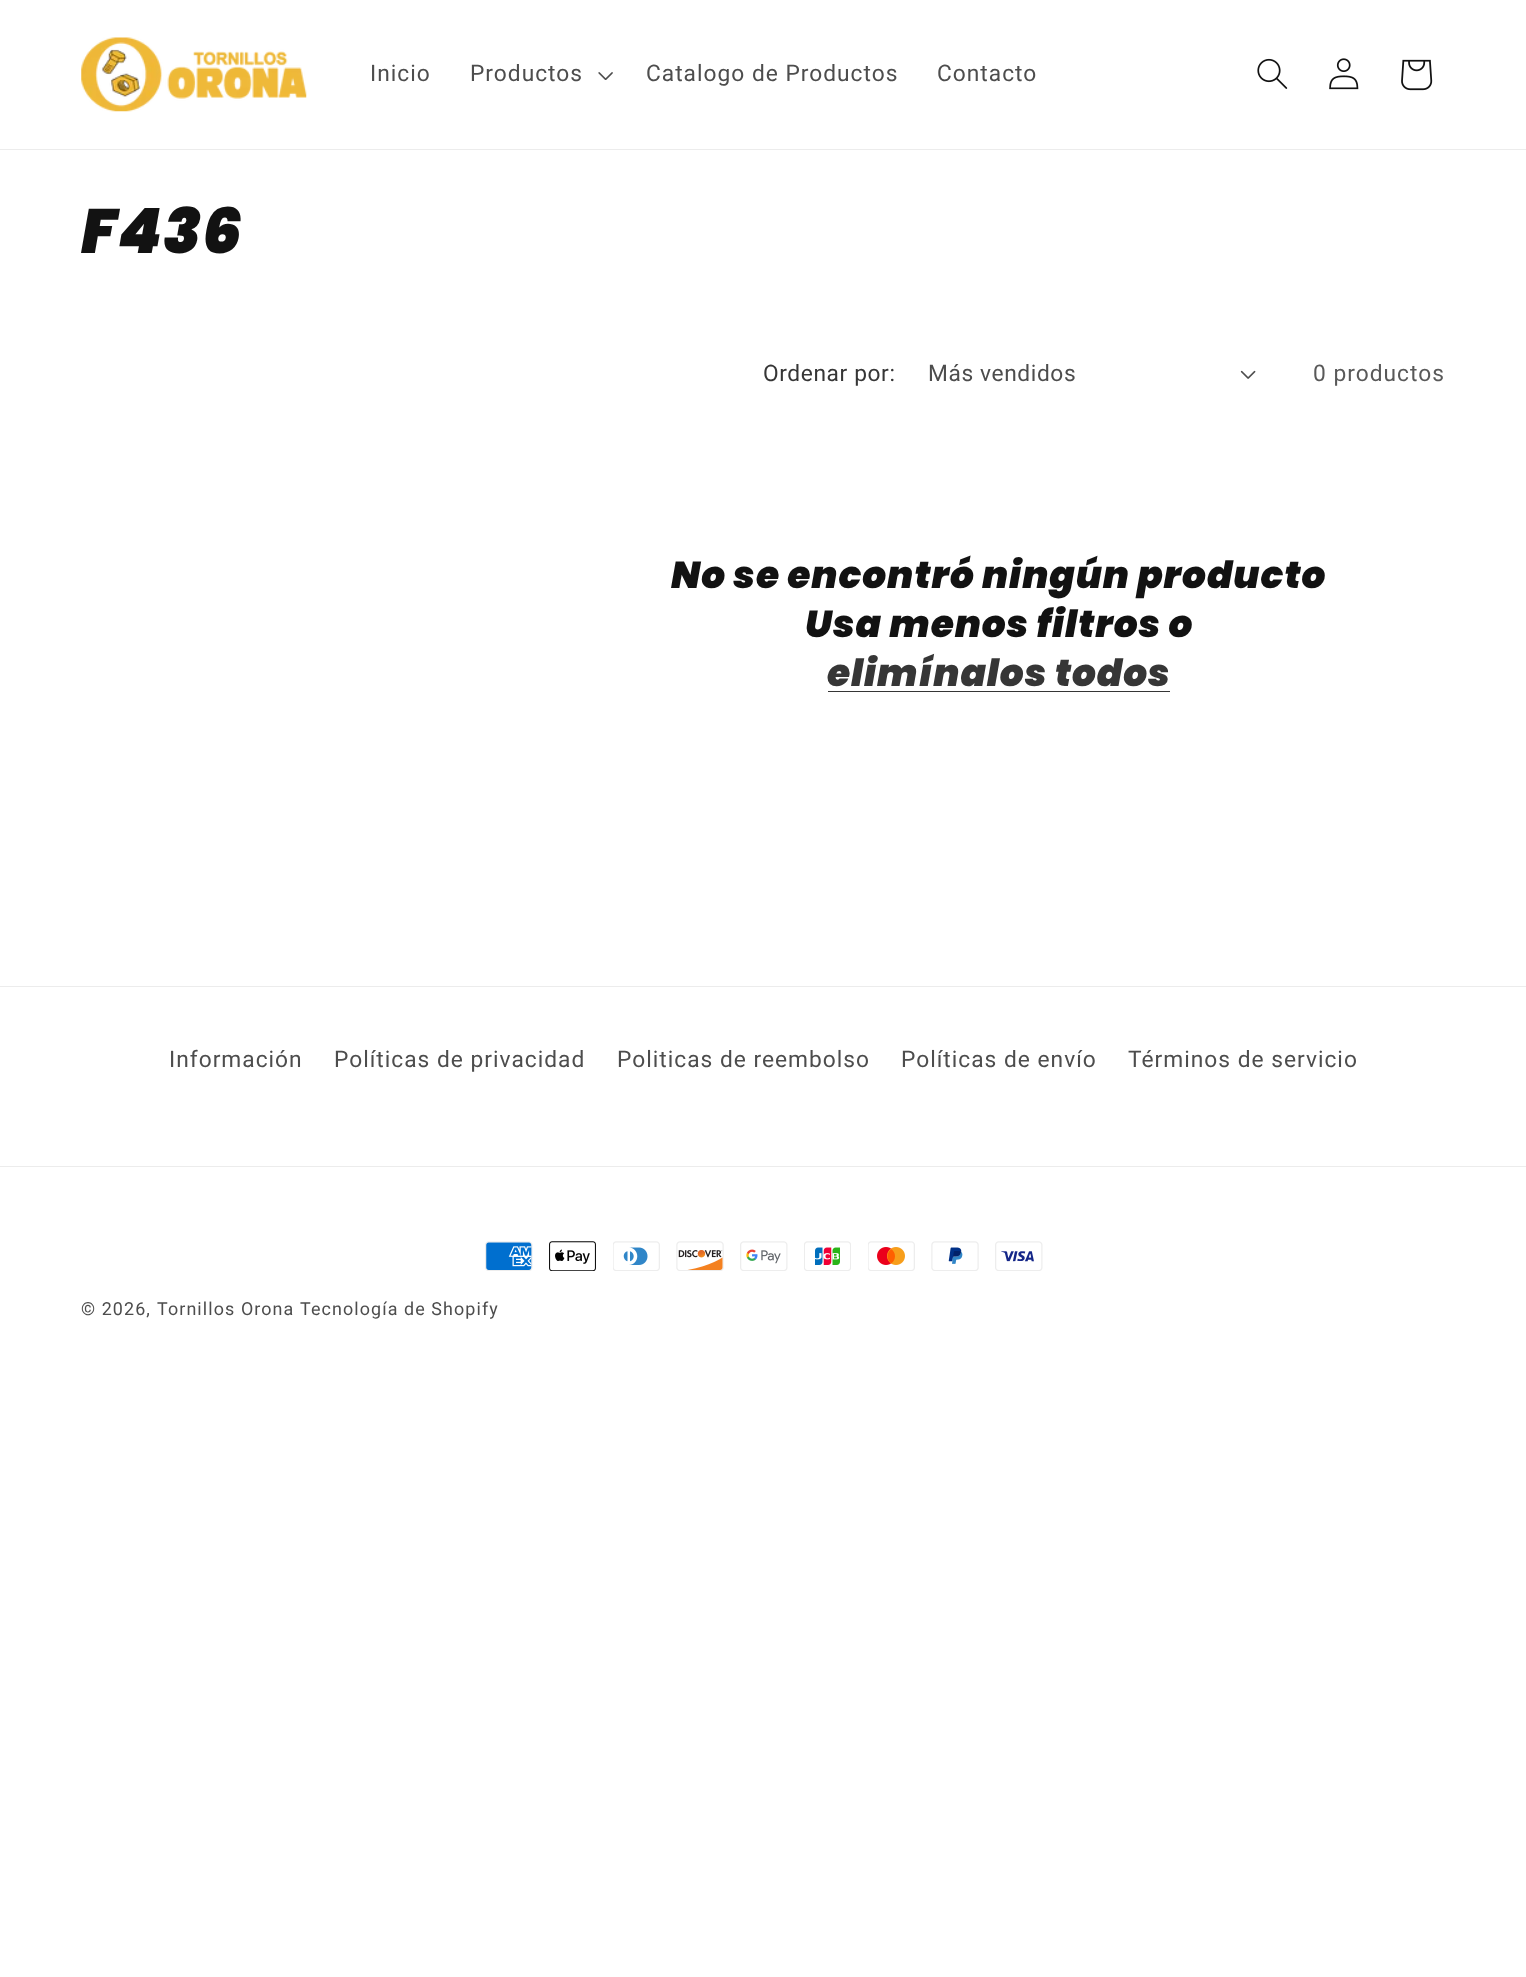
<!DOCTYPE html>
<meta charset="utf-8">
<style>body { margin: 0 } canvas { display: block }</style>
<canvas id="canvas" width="1526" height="1977"></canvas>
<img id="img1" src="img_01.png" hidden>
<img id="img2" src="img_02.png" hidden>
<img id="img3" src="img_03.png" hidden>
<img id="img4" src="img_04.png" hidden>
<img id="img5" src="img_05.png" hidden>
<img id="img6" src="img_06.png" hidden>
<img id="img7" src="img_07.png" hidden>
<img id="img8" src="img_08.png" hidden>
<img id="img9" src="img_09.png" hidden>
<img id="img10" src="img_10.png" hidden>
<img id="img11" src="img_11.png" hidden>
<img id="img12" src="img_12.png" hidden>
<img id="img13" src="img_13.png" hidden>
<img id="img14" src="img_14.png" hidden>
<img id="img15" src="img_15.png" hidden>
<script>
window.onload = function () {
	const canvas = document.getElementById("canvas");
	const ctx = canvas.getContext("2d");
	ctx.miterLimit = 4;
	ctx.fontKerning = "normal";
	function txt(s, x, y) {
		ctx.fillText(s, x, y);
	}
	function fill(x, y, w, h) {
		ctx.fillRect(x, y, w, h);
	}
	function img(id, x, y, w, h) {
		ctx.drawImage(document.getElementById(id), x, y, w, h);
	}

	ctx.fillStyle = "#FFFFFF";
	fill(0, 0, 1526, 1977);
	ctx.fillStyle = "#ECECEC";
	fill(0, 149, 1526, 1);
	img("img1", 81, 37, 226, 75);
	img("img2", 598, 72, 15, 8);
	img("img3", 1257, 58, 31, 31);
	img("img4", 1329, 58, 30, 32);
	img("img5", 1401, 59, 32, 32);
	img("img6", 1240, 370, 16, 9);
	ctx.fillStyle = "#363636";
	fill(828, 691, 342, 1);
	ctx.fillStyle = "#ECECEC";
	fill(0, 986, 1526, 1);
	fill(0, 1166, 1526, 1);
	img("img7", 485, 1241, 48, 30);
	img("img8", 549, 1241, 47, 30);
	img("img9", 613, 1241, 47, 30);
	img("img10", 676, 1241, 48, 30);
	img("img11", 740, 1241, 48, 30);
	img("img12", 804, 1241, 47, 30);
	img("img13", 868, 1241, 47, 30);
	img("img14", 931, 1241, 48, 30);
	img("img15", 995, 1241, 48, 30);
	ctx.letterSpacing = "1px";
	ctx.font = "22.75px Roboto";
	ctx.fillStyle = "#4D4D4D";
	txt("Inicio", 370, 81);
	txt("Productos", 470, 81);
	txt("Catalogo de Productos", 646, 81);
	txt("Contacto", 937, 81);
	ctx.letterSpacing = "0.95px";
	ctx.font = "italic 900 62.5px Poppins";
	ctx.fillStyle = "#121212";
	txt("F436", 81, 253);
	ctx.letterSpacing = "0.6px";
	ctx.font = "22.75px Roboto";
	ctx.fillStyle = "#363636";
	txt("Ordenar por:", 763, 381);
	ctx.fillStyle = "#4D4D4D";
	txt("Más vendidos", 928, 381);
	ctx.letterSpacing = "1px";
	ctx.fillStyle = "#595959";
	txt("0 productos", 1313, 381);
	ctx.letterSpacing = "0.95px";
	ctx.font = "italic 900 37.5px Poppins";
	ctx.fillStyle = "#121212";
	txt("No se encontró ningún producto", 671, 588);
	txt("Usa menos filtros o", 805, 637);
	ctx.fillStyle = "#363636";
	txt("elimínalos todos", 827, 686);
	ctx.letterSpacing = "1px";
	ctx.font = "22.75px Roboto";
	ctx.fillStyle = "#4D4D4D";
	txt("Información", 169, 1067);
	txt("Políticas de privacidad", 334, 1067);
	txt("Politicas de reembolso", 617, 1067);
	txt("Políticas de envío", 901, 1067);
	txt("Términos de servicio", 1128, 1067);
	ctx.letterSpacing = "1.1px";
	ctx.font = "17.9px Roboto";
	txt("© 2026,", 81, 1315);
	txt("Tornillos Orona", 157, 1315);
	txt("Tecnología de Shopify", 300, 1315);
};
</script>
